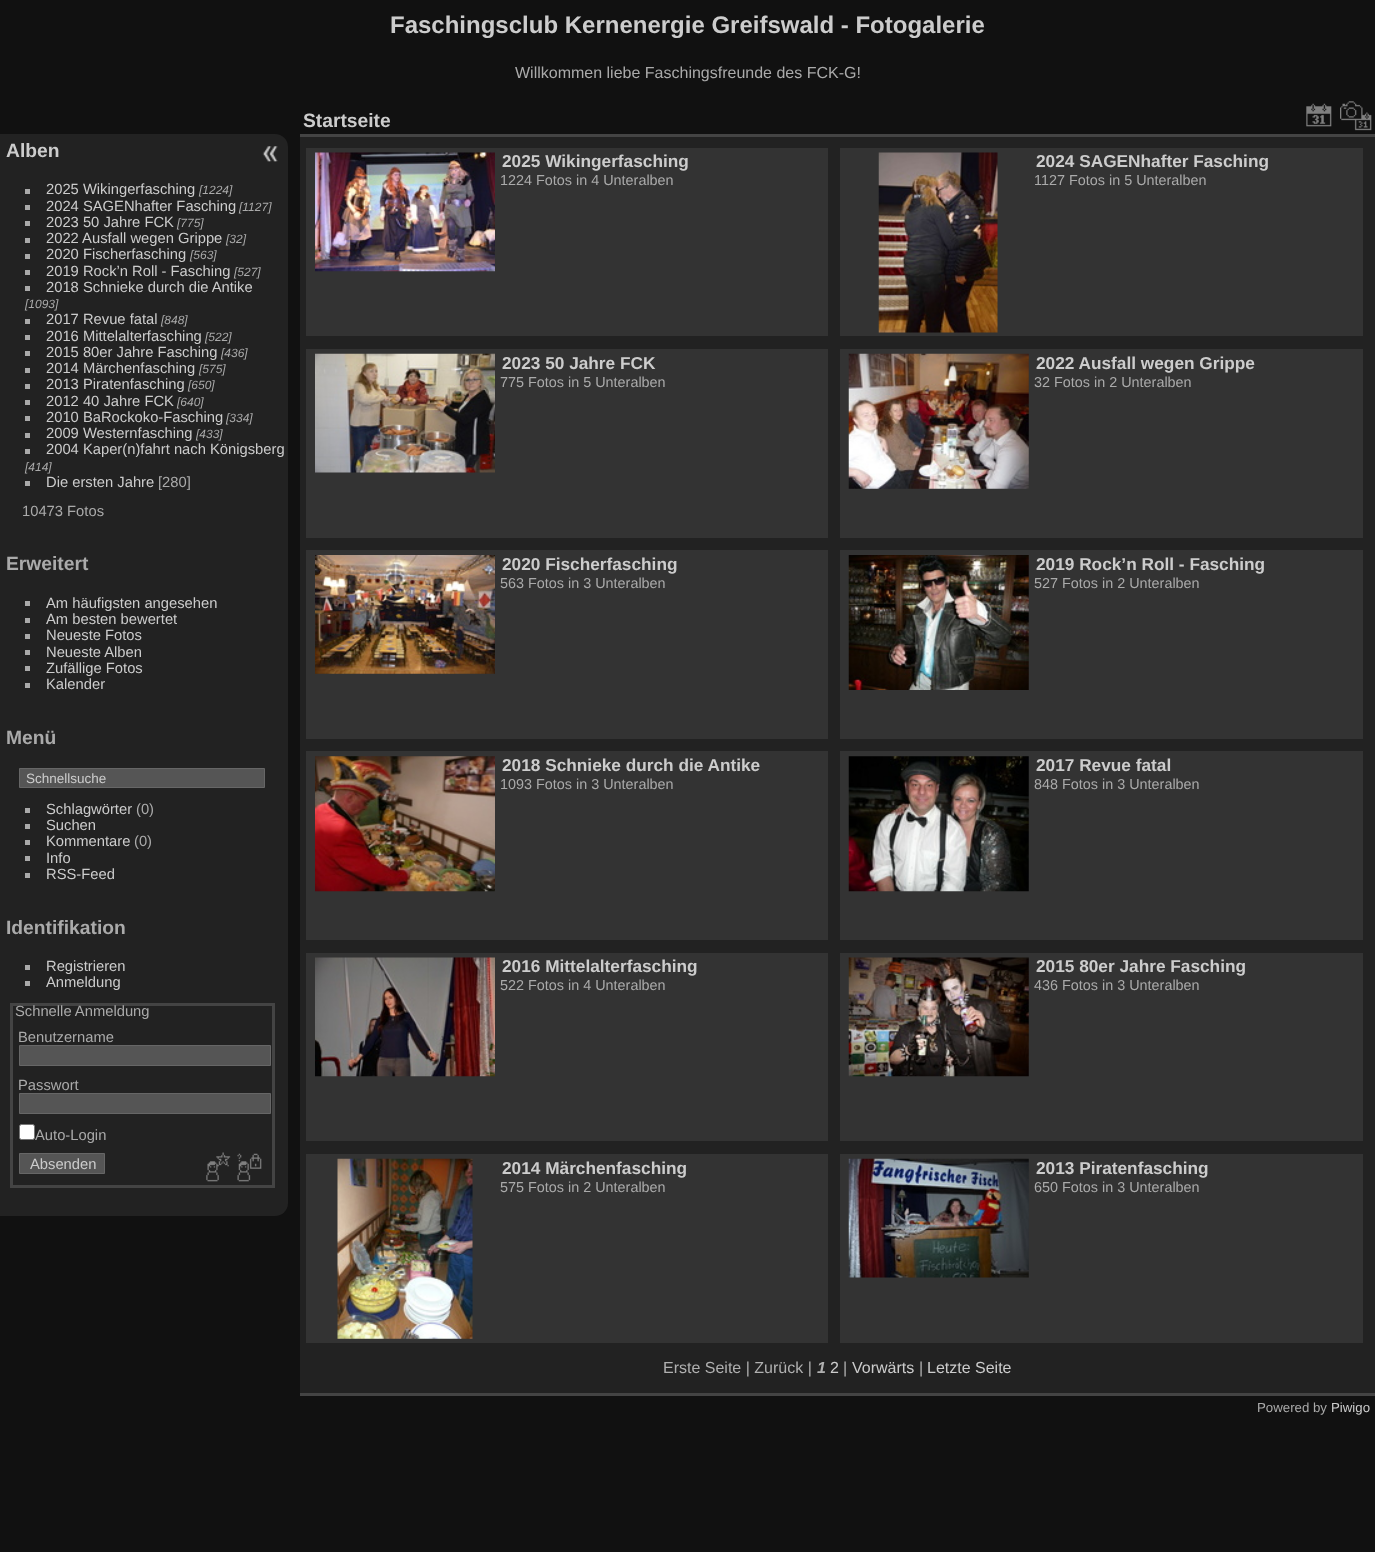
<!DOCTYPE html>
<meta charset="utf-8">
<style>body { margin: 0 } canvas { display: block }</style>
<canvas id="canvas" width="1375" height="1552"></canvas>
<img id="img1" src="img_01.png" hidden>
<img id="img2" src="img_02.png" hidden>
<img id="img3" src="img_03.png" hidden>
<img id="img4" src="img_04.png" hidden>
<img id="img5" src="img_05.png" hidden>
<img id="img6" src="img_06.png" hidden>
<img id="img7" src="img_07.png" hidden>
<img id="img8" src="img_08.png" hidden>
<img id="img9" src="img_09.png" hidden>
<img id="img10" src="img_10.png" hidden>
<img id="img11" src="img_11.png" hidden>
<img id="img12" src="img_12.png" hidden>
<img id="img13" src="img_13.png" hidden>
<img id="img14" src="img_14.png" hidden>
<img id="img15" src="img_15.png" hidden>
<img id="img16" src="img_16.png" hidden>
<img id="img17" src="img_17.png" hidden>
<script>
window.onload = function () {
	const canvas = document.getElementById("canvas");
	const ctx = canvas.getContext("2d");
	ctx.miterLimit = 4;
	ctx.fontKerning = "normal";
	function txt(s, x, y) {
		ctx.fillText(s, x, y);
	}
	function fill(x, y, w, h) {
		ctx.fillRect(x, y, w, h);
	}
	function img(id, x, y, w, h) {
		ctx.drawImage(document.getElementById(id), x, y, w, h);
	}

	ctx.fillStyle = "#111111";
	fill(0, 0, 1375, 1552);
	ctx.fillStyle = "#222222";
	ctx.beginPath();
	ctx.roundRect(0, 134, 288, 1082, [0, 13, 13, 0]);
	ctx.fill();
	ctx.fillStyle = "#AAAAAA";
	fill(25, 189, 5, 5);
	fill(25, 205, 5, 5);
	fill(25, 221, 5, 5);
	fill(25, 238, 5, 5);
	fill(25, 254, 5, 5);
	fill(25, 270, 5, 5);
	fill(25, 286, 5, 5);
	fill(25, 319, 5, 5);
	fill(25, 335, 5, 5);
	fill(25, 351, 5, 5);
	fill(25, 368, 5, 5);
	fill(25, 384, 5, 5);
	fill(25, 400, 5, 5);
	fill(25, 416, 5, 5);
	fill(25, 433, 5, 5);
	fill(25, 449, 5, 5);
	fill(25, 481, 5, 5);
	fill(25, 601, 5, 5);
	fill(25, 618, 5, 5);
	fill(25, 634, 5, 5);
	fill(25, 650, 5, 5);
	fill(25, 666, 5, 5);
	fill(25, 683, 5, 5);
	ctx.fillStyle = "#555555";
	ctx.beginPath();
	ctx.rect(19.5, 768.5, 245, 19);
	ctx.fill();
	ctx.strokeStyle = "#666666";
	ctx.stroke();
	ctx.fillStyle = "#AAAAAA";
	fill(25, 808, 5, 5);
	fill(25, 824, 5, 5);
	fill(25, 840, 5, 5);
	fill(25, 856, 5, 5);
	fill(25, 873, 5, 5);
	fill(25, 965, 5, 5);
	fill(25, 981, 5, 5);
	ctx.strokeStyle = "#444444";
	ctx.lineWidth = 3;
	ctx.strokeRect(11.5, 1004.5, 262, 182);
	ctx.fillStyle = "#555555";
	ctx.beginPath();
	ctx.rect(19.5, 1045.5, 251, 20);
	ctx.fill();
	ctx.strokeStyle = "#666666";
	ctx.lineWidth = 1;
	ctx.stroke();
	ctx.beginPath();
	ctx.rect(19.5, 1093.5, 251, 20);
	ctx.fill();
	ctx.stroke();
	ctx.fillStyle = "#FFFFFF";
	ctx.beginPath();
	ctx.roundRect(19.5, 1124.5, 15, 15, 2);
	ctx.fill();
	ctx.strokeStyle = "#767676";
	ctx.stroke();
	ctx.fillStyle = "#555555";
	ctx.beginPath();
	ctx.rect(19.5, 1153.5, 85, 20);
	ctx.fill();
	ctx.strokeStyle = "#666666";
	ctx.stroke();
	img("img1", 206, 1152, 25, 30);
	img("img2", 237, 1153, 25, 29);
	ctx.fillStyle = "#222222";
	fill(300, 137, 1075, 1256);
	ctx.fillStyle = "#444444";
	fill(300, 1393, 1075, 3);
	fill(300, 134, 1075, 3);
	img("img3", 1306, 103, 26, 24);
	img("img4", 1340, 101, 32, 30);
	ctx.fillStyle = "#333333";
	fill(306, 148, 522, 188);
	img("img5", 315, 152, 180, 120);
	fill(840, 148, 523, 188);
	img("img6", 878, 152, 120, 181);
	fill(306, 349, 522, 189);
	img("img7", 315, 353, 180, 120);
	fill(840, 349, 523, 189);
	img("img8", 848, 353, 181, 136);
	fill(306, 550, 522, 189);
	img("img9", 315, 555, 180, 119);
	fill(840, 550, 523, 189);
	img("img10", 848, 555, 181, 135);
	fill(306, 751, 522, 189);
	img("img11", 315, 756, 180, 136);
	fill(840, 751, 523, 189);
	img("img12", 848, 756, 181, 136);
	fill(306, 953, 522, 188);
	img("img13", 315, 957, 180, 120);
	fill(840, 953, 523, 188);
	img("img14", 848, 957, 181, 120);
	fill(306, 1154, 522, 189);
	img("img15", 337, 1158, 136, 181);
	fill(840, 1154, 523, 189);
	img("img16", 848, 1158, 181, 120);
	img("img17", 262, 146, 16, 16);
	ctx.font = "bold 24px Liberation Sans";
	ctx.fillStyle = "#CCCCCC";
	txt("Faschingsclub Kernenergie Greifswald - Fotogalerie", 390, 33);
	ctx.font = "16px Liberation Sans";
	ctx.fillStyle = "#AAAAAA";
	txt("Willkommen liebe Faschingsfreunde des FCK-G!", 515, 78);
	ctx.font = "bold 19.25px Liberation Sans";
	ctx.fillStyle = "#CCCCCC";
	txt("Alben", 6, 157);
	ctx.font = "14.75px Liberation Sans";
	txt("2025 Wikingerfasching", 46, 194);
	ctx.font = "italic 12px Liberation Sans";
	ctx.fillStyle = "#AAAAAA";
	txt("[1224]", 199, 194);
	ctx.font = "14.75px Liberation Sans";
	ctx.fillStyle = "#CCCCCC";
	txt("2024 SAGENhafter Fasching", 46, 211);
	ctx.font = "italic 12px Liberation Sans";
	ctx.fillStyle = "#AAAAAA";
	txt("[1127]", 239, 211);
	ctx.font = "14.75px Liberation Sans";
	ctx.fillStyle = "#CCCCCC";
	txt("2023 50 Jahre FCK", 46, 227);
	ctx.font = "italic 12px Liberation Sans";
	ctx.fillStyle = "#AAAAAA";
	txt("[775]", 177, 227);
	ctx.font = "14.75px Liberation Sans";
	ctx.fillStyle = "#CCCCCC";
	txt("2022 Ausfall wegen Grippe", 46, 243);
	ctx.font = "italic 12px Liberation Sans";
	ctx.fillStyle = "#AAAAAA";
	txt("[32]", 226, 243);
	ctx.font = "14.75px Liberation Sans";
	ctx.fillStyle = "#CCCCCC";
	txt("2020 Fischerfasching", 46, 259);
	ctx.font = "italic 12px Liberation Sans";
	ctx.fillStyle = "#AAAAAA";
	txt("[563]", 190, 259);
	ctx.font = "14.75px Liberation Sans";
	ctx.fillStyle = "#CCCCCC";
	txt("2019 Rock’n Roll - Fasching", 46, 276);
	ctx.font = "italic 12px Liberation Sans";
	ctx.fillStyle = "#AAAAAA";
	txt("[527]", 234, 276);
	ctx.font = "14.75px Liberation Sans";
	ctx.fillStyle = "#CCCCCC";
	txt("2018 Schnieke durch die Antike", 46, 292);
	ctx.font = "italic 12px Liberation Sans";
	ctx.fillStyle = "#AAAAAA";
	txt("[1093]", 25, 308);
	ctx.font = "14.75px Liberation Sans";
	ctx.fillStyle = "#CCCCCC";
	txt("2017 Revue fatal", 46, 324);
	ctx.font = "italic 12px Liberation Sans";
	ctx.fillStyle = "#AAAAAA";
	txt("[848]", 161, 324);
	ctx.font = "14.75px Liberation Sans";
	ctx.fillStyle = "#CCCCCC";
	txt("2016 Mittelalterfasching", 46, 341);
	ctx.font = "italic 12px Liberation Sans";
	ctx.fillStyle = "#AAAAAA";
	txt("[522]", 205, 341);
	ctx.font = "14.75px Liberation Sans";
	ctx.fillStyle = "#CCCCCC";
	txt("2015 80er Jahre Fasching", 46, 357);
	ctx.font = "italic 12px Liberation Sans";
	ctx.fillStyle = "#AAAAAA";
	txt("[436]", 221, 357);
	ctx.font = "14.75px Liberation Sans";
	ctx.fillStyle = "#CCCCCC";
	txt("2014 Märchenfasching", 46, 373);
	ctx.font = "italic 12px Liberation Sans";
	ctx.fillStyle = "#AAAAAA";
	txt("[575]", 199, 373);
	ctx.font = "14.75px Liberation Sans";
	ctx.fillStyle = "#CCCCCC";
	txt("2013 Piratenfasching", 46, 389);
	ctx.font = "italic 12px Liberation Sans";
	ctx.fillStyle = "#AAAAAA";
	txt("[650]", 188, 389);
	ctx.font = "14.75px Liberation Sans";
	ctx.fillStyle = "#CCCCCC";
	txt("2012 40 Jahre FCK", 46, 406);
	ctx.font = "italic 12px Liberation Sans";
	ctx.fillStyle = "#AAAAAA";
	txt("[640]", 177, 406);
	ctx.font = "14.75px Liberation Sans";
	ctx.fillStyle = "#CCCCCC";
	txt("2010 BaRockoko-Fasching", 46, 422);
	ctx.font = "italic 12px Liberation Sans";
	ctx.fillStyle = "#AAAAAA";
	txt("[334]", 226, 422);
	ctx.font = "14.75px Liberation Sans";
	ctx.fillStyle = "#CCCCCC";
	txt("2009 Westernfasching", 46, 438);
	ctx.font = "italic 12px Liberation Sans";
	ctx.fillStyle = "#AAAAAA";
	txt("[433]", 196, 438);
	ctx.font = "14.75px Liberation Sans";
	ctx.fillStyle = "#CCCCCC";
	txt("2004 Kaper(n)fahrt nach Königsberg", 46, 454);
	ctx.font = "italic 12px Liberation Sans";
	ctx.fillStyle = "#AAAAAA";
	txt("[414]", 25, 471);
	ctx.font = "14.75px Liberation Sans";
	ctx.fillStyle = "#CCCCCC";
	txt("Die ersten Jahre", 46, 487);
	ctx.fillStyle = "#AAAAAA";
	txt("[280]", 158, 487);
	txt("10473 Fotos", 22, 516);
	ctx.font = "bold 19.25px Liberation Sans";
	txt("Erweitert", 6, 570);
	ctx.font = "14.75px Liberation Sans";
	ctx.fillStyle = "#CCCCCC";
	txt("Am häufigsten angesehen", 46, 608);
	txt("Am besten bewertet", 46, 624);
	txt("Neueste Fotos", 46, 640);
	txt("Neueste Alben", 46, 657);
	txt("Zufällige Fotos", 46, 673);
	txt("Kalender", 46, 689);
	ctx.font = "bold 19.25px Liberation Sans";
	ctx.fillStyle = "#AAAAAA";
	txt("Menü", 6, 744);
	ctx.font = "13.5px Liberation Sans";
	ctx.fillStyle = "#CCCCCC";
	txt("Schnellsuche", 26, 783);
	ctx.font = "14.75px Liberation Sans";
	txt("Schlagwörter", 46, 814);
	ctx.fillStyle = "#AAAAAA";
	txt("(0)", 136, 814);
	ctx.fillStyle = "#CCCCCC";
	txt("Suchen", 46, 830);
	txt("Kommentare", 46, 846);
	ctx.fillStyle = "#AAAAAA";
	txt("(0)", 134, 846);
	ctx.fillStyle = "#CCCCCC";
	txt("Info", 46, 863);
	txt("RSS-Feed", 46, 879);
	ctx.font = "bold 19.25px Liberation Sans";
	ctx.fillStyle = "#AAAAAA";
	txt("Identifikation", 6, 934);
	ctx.font = "14.75px Liberation Sans";
	ctx.fillStyle = "#CCCCCC";
	txt("Registrieren", 46, 971);
	txt("Anmeldung", 46, 987);
	ctx.fillStyle = "#AAAAAA";
	txt("Schnelle Anmeldung", 15, 1016);
	txt("Benutzername", 18, 1042);
	txt("Passwort", 18, 1090);
	txt("Auto-Login", 35, 1140);
	ctx.fillStyle = "#CCCCCC";
	txt("Absenden", 30, 1169);
	ctx.font = "bold 19.25px Liberation Sans";
	txt("Startseite", 303, 127);
	ctx.font = "bold 17.25px Liberation Sans";
	txt("2025 Wikingerfasching", 502, 167);
	ctx.font = "14.4px Liberation Sans";
	ctx.fillStyle = "#AAAAAA";
	txt("1224 Fotos in 4 Unteralben", 500, 185);
	ctx.font = "bold 17.25px Liberation Sans";
	ctx.fillStyle = "#CCCCCC";
	txt("2024 SAGENhafter Fasching", 1036, 167);
	ctx.font = "14.4px Liberation Sans";
	ctx.fillStyle = "#AAAAAA";
	txt("1127 Fotos in 5 Unteralben", 1034, 185);
	ctx.font = "bold 17.25px Liberation Sans";
	ctx.fillStyle = "#CCCCCC";
	txt("2023 50 Jahre FCK", 502, 369);
	ctx.font = "14.4px Liberation Sans";
	ctx.fillStyle = "#AAAAAA";
	txt("775 Fotos in 5 Unteralben", 500, 387);
	ctx.font = "bold 17.25px Liberation Sans";
	ctx.fillStyle = "#CCCCCC";
	txt("2022 Ausfall wegen Grippe", 1036, 369);
	ctx.font = "14.4px Liberation Sans";
	ctx.fillStyle = "#AAAAAA";
	txt("32 Fotos in 2 Unteralben", 1034, 387);
	ctx.font = "bold 17.25px Liberation Sans";
	ctx.fillStyle = "#CCCCCC";
	txt("2020 Fischerfasching", 502, 570);
	ctx.font = "14.4px Liberation Sans";
	ctx.fillStyle = "#AAAAAA";
	txt("563 Fotos in 3 Unteralben", 500, 588);
	ctx.font = "bold 17.25px Liberation Sans";
	ctx.fillStyle = "#CCCCCC";
	txt("2019 Rock’n Roll - Fasching", 1036, 570);
	ctx.font = "14.4px Liberation Sans";
	ctx.fillStyle = "#AAAAAA";
	txt("527 Fotos in 2 Unteralben", 1034, 588);
	ctx.font = "bold 17.25px Liberation Sans";
	ctx.fillStyle = "#CCCCCC";
	txt("2018 Schnieke durch die Antike", 502, 771);
	ctx.font = "14.4px Liberation Sans";
	ctx.fillStyle = "#AAAAAA";
	txt("1093 Fotos in 3 Unteralben", 500, 789);
	ctx.font = "bold 17.25px Liberation Sans";
	ctx.fillStyle = "#CCCCCC";
	txt("2017 Revue fatal", 1036, 771);
	ctx.font = "14.4px Liberation Sans";
	ctx.fillStyle = "#AAAAAA";
	txt("848 Fotos in 3 Unteralben", 1034, 789);
	ctx.font = "bold 17.25px Liberation Sans";
	ctx.fillStyle = "#CCCCCC";
	txt("2016 Mittelalterfasching", 502, 972);
	ctx.font = "14.4px Liberation Sans";
	ctx.fillStyle = "#AAAAAA";
	txt("522 Fotos in 4 Unteralben", 500, 990);
	ctx.font = "bold 17.25px Liberation Sans";
	ctx.fillStyle = "#CCCCCC";
	txt("2015 80er Jahre Fasching", 1036, 972);
	ctx.font = "14.4px Liberation Sans";
	ctx.fillStyle = "#AAAAAA";
	txt("436 Fotos in 3 Unteralben", 1034, 990);
	ctx.font = "bold 17.25px Liberation Sans";
	ctx.fillStyle = "#CCCCCC";
	txt("2014 Märchenfasching", 502, 1174);
	ctx.font = "14.4px Liberation Sans";
	ctx.fillStyle = "#AAAAAA";
	txt("575 Fotos in 2 Unteralben", 500, 1192);
	ctx.font = "bold 17.25px Liberation Sans";
	ctx.fillStyle = "#CCCCCC";
	txt("2013 Piratenfasching", 1036, 1174);
	ctx.font = "14.4px Liberation Sans";
	ctx.fillStyle = "#AAAAAA";
	txt("650 Fotos in 3 Unteralben", 1034, 1192);
	ctx.font = "16px Liberation Sans";
	ctx.fillStyle = "#B0B0B0";
	txt("Erste Seite | Zurück |", 663, 1373);
	ctx.font = "italic bold 16px Liberation Sans";
	txt("1", 817, 1373);
	ctx.font = "16px Liberation Sans";
	ctx.fillStyle = "#CCCCCC";
	txt("2", 830, 1373);
	ctx.fillStyle = "#B0B0B0";
	txt("|", 843, 1373);
	ctx.fillStyle = "#CCCCCC";
	txt("Vorwärts", 852, 1373);
	ctx.fillStyle = "#B0B0B0";
	txt("|", 919, 1373);
	ctx.fillStyle = "#CCCCCC";
	txt("Letzte Seite", 927, 1373);
	ctx.font = "13.25px Liberation Sans";
	ctx.fillStyle = "#AAAAAA";
	txt("Powered by", 1257, 1412);
	ctx.fillStyle = "#CCCCCC";
	txt("Piwigo", 1331, 1412);
};
</script>
